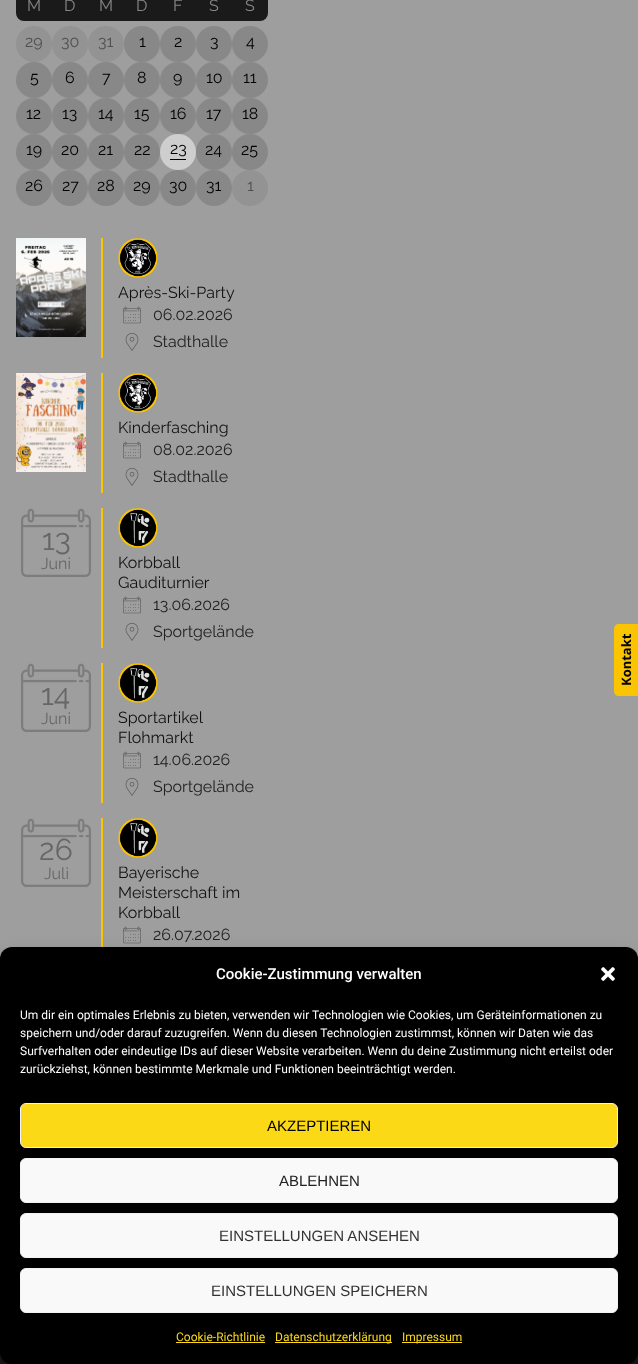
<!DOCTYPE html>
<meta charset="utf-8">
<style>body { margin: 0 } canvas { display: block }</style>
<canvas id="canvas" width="638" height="1364"></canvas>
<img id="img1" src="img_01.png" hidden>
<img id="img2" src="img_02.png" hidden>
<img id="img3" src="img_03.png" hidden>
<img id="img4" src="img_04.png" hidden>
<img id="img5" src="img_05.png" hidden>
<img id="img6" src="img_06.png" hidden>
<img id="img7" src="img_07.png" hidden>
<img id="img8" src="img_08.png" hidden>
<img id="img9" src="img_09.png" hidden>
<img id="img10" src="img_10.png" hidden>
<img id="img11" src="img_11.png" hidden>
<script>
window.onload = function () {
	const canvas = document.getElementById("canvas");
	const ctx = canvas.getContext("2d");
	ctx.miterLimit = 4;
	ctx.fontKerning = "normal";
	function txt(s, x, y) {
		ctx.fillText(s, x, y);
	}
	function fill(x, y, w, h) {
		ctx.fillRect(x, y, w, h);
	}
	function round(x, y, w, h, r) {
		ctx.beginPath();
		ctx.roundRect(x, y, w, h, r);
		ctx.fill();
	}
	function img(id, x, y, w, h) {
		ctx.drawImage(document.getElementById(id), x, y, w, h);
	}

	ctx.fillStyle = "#9E9E9E";
	fill(0, 0, 638, 1364);
	ctx.fillStyle = "#1A1A1A";
	round(16, -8, 252, 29, 8);
	ctx.fillStyle = "#939393";
	ctx.beginPath();
	ctx.arc(34, 44, 18, 0, Math.PI * 2);
	ctx.fill();
	ctx.beginPath();
	ctx.arc(70, 44, 18, 0, Math.PI * 2);
	ctx.fill();
	ctx.beginPath();
	ctx.arc(106, 44, 18, 0, Math.PI * 2);
	ctx.fill();
	ctx.fillStyle = "#888888";
	ctx.beginPath();
	ctx.arc(142, 44, 18, 0, Math.PI * 2);
	ctx.fill();
	ctx.beginPath();
	ctx.arc(178, 44, 18, 0, Math.PI * 2);
	ctx.fill();
	ctx.beginPath();
	ctx.arc(214, 44, 18, 0, Math.PI * 2);
	ctx.fill();
	ctx.beginPath();
	ctx.arc(250, 44, 18, 0, Math.PI * 2);
	ctx.fill();
	ctx.beginPath();
	ctx.arc(34, 80, 18, 0, Math.PI * 2);
	ctx.fill();
	ctx.beginPath();
	ctx.arc(70, 80, 18, 0, Math.PI * 2);
	ctx.fill();
	ctx.beginPath();
	ctx.arc(106, 80, 18, 0, Math.PI * 2);
	ctx.fill();
	ctx.beginPath();
	ctx.arc(142, 80, 18, 0, Math.PI * 2);
	ctx.fill();
	ctx.beginPath();
	ctx.arc(178, 80, 18, 0, Math.PI * 2);
	ctx.fill();
	ctx.beginPath();
	ctx.arc(214, 80, 18, 0, Math.PI * 2);
	ctx.fill();
	ctx.beginPath();
	ctx.arc(250, 80, 18, 0, Math.PI * 2);
	ctx.fill();
	ctx.beginPath();
	ctx.arc(34, 116, 18, 0, Math.PI * 2);
	ctx.fill();
	ctx.beginPath();
	ctx.arc(70, 116, 18, 0, Math.PI * 2);
	ctx.fill();
	ctx.beginPath();
	ctx.arc(106, 116, 18, 0, Math.PI * 2);
	ctx.fill();
	ctx.beginPath();
	ctx.arc(142, 116, 18, 0, Math.PI * 2);
	ctx.fill();
	ctx.beginPath();
	ctx.arc(178, 116, 18, 0, Math.PI * 2);
	ctx.fill();
	ctx.beginPath();
	ctx.arc(214, 116, 18, 0, Math.PI * 2);
	ctx.fill();
	ctx.beginPath();
	ctx.arc(250, 116, 18, 0, Math.PI * 2);
	ctx.fill();
	ctx.beginPath();
	ctx.arc(34, 152, 18, 0, Math.PI * 2);
	ctx.fill();
	ctx.beginPath();
	ctx.arc(70, 152, 18, 0, Math.PI * 2);
	ctx.fill();
	ctx.beginPath();
	ctx.arc(106, 152, 18, 0, Math.PI * 2);
	ctx.fill();
	ctx.beginPath();
	ctx.arc(142, 152, 18, 0, Math.PI * 2);
	ctx.fill();
	ctx.fillStyle = "#CECECE";
	ctx.beginPath();
	ctx.arc(178, 152, 18, 0, Math.PI * 2);
	ctx.fill();
	ctx.fillStyle = "#000000";
	fill(170, 159, 16, 1);
	ctx.fillStyle = "#888888";
	ctx.beginPath();
	ctx.arc(214, 152, 18, 0, Math.PI * 2);
	ctx.fill();
	ctx.beginPath();
	ctx.arc(250, 152, 18, 0, Math.PI * 2);
	ctx.fill();
	ctx.beginPath();
	ctx.arc(34, 188, 18, 0, Math.PI * 2);
	ctx.fill();
	ctx.beginPath();
	ctx.arc(70, 188, 18, 0, Math.PI * 2);
	ctx.fill();
	ctx.beginPath();
	ctx.arc(106, 188, 18, 0, Math.PI * 2);
	ctx.fill();
	ctx.beginPath();
	ctx.arc(142, 188, 18, 0, Math.PI * 2);
	ctx.fill();
	ctx.beginPath();
	ctx.arc(178, 188, 18, 0, Math.PI * 2);
	ctx.fill();
	ctx.beginPath();
	ctx.arc(214, 188, 18, 0, Math.PI * 2);
	ctx.fill();
	ctx.fillStyle = "#939393";
	ctx.beginPath();
	ctx.arc(250, 188, 18, 0, Math.PI * 2);
	ctx.fill();
	img("img1", 16, 238, 70, 99);
	ctx.fillStyle = "#FBC400";
	fill(101, 238, 2, 120);
	img("img2", 118, 238, 40, 40);
	img("img3", 123, 306, 18, 18);
	img("img4", 125, 333, 14, 18);
	img("img5", 16, 373, 70, 99);
	fill(101, 373, 2, 120);
	img("img6", 118, 373, 40, 40);
	img("img3", 123, 441, 18, 18);
	img("img4", 125, 468, 14, 18);
	img("img7", 21, 508, 70, 69);
	fill(101, 508, 2, 140);
	img("img8", 118, 508, 40, 40);
	img("img3", 123, 596, 18, 18);
	img("img4", 125, 623, 14, 18);
	img("img7", 21, 663, 70, 69);
	fill(101, 663, 2, 140);
	img("img9", 118, 663, 40, 40);
	img("img3", 123, 751, 18, 18);
	img("img4", 125, 778, 14, 18);
	img("img7", 21, 818, 70, 69);
	fill(101, 818, 2, 129);
	img("img10", 118, 818, 40, 40);
	img("img3", 123, 926, 18, 18);
	ctx.fillStyle = "#1A1A1A";
	fill(0, 1352, 638, 12);
	ctx.fillStyle = "#FBC400";
	ctx.beginPath();
	ctx.moveTo(614, 691);
	ctx.lineTo(614, 629);
	ctx.bezierCurveTo(614, 626, 616, 624, 619, 624);
	ctx.lineTo(638, 624);
	ctx.lineTo(638, 696);
	ctx.lineTo(619, 696);
	ctx.bezierCurveTo(616, 696, 614, 694, 614, 691);
	ctx.closePath();
	ctx.fill();
	ctx.fillStyle = "rgba(0, 0, 0, 0.23)";
	ctx.filter = "blur(3px)";
	ctx.beginPath();
	ctx.roundRect(0, 953, 638, 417, 12);
	ctx.fill();
	ctx.filter = "none";
	ctx.fillStyle = "rgba(0, 0, 0, 0.19)";
	ctx.filter = "blur(10px)";
	ctx.beginPath();
	ctx.roundRect(0, 957, 638, 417, 12);
	ctx.fill();
	ctx.filter = "none";
	ctx.fillStyle = "#000000";
	round(0, 947, 638, 417, 12);
	img("img11", 601, 967, 14, 14);
	ctx.fillStyle = "#FBD916";
	ctx.beginPath();
	ctx.roundRect(20.5, 1103.5, 597, 44, 5.5);
	ctx.fill();
	ctx.strokeStyle = "#F2F2F2";
	ctx.stroke();
	ctx.fillStyle = "#F9F9F9";
	ctx.beginPath();
	ctx.roundRect(20.5, 1158.5, 597, 44, 5.5);
	ctx.fill();
	ctx.stroke();
	ctx.beginPath();
	ctx.roundRect(20.5, 1213.5, 597, 44, 5.5);
	ctx.fill();
	ctx.stroke();
	ctx.beginPath();
	ctx.roundRect(20.5, 1268.5, 597, 44, 5.5);
	ctx.fill();
	ctx.stroke();
	ctx.fillStyle = "#FBD916";
	fill(176, 1342, 89, 1);
	fill(275, 1342, 117, 1);
	fill(402, 1342, 60, 1);
	ctx.font = "16px Raleway";
	ctx.fillStyle = "#888888";
	txt("M", 27, 11);
	txt("D", 64, 11);
	txt("M", 99, 11);
	txt("D", 136, 11);
	txt("F", 173, 11);
	txt("S", 209, 11);
	txt("S", 245, 11);
	ctx.fillStyle = "#4F4F4F";
	txt("29", 25, 47);
	txt("30", 61, 47);
	txt("31", 98, 47);
	ctx.fillStyle = "#000000";
	txt("1", 139, 47);
	txt("2", 174, 47);
	txt("3", 210, 47);
	txt("4", 246, 47);
	txt("5", 30, 83);
	txt("6", 65, 83);
	txt("7", 102, 83);
	txt("8", 137, 83);
	txt("9", 173, 83);
	txt("10", 206, 83);
	txt("11", 243, 83);
	txt("12", 26, 119);
	txt("13", 62, 119);
	txt("14", 98, 119);
	txt("15", 134, 119);
	txt("16", 170, 119);
	txt("17", 206, 119);
	txt("18", 242, 119);
	txt("19", 26, 155);
	txt("20", 61, 155);
	txt("21", 98, 155);
	txt("22", 134, 155);
	txt("23", 170, 154);
	txt("24", 205, 155);
	txt("25", 241, 155);
	txt("26", 25, 191);
	txt("27", 62, 191);
	txt("28", 97, 191);
	txt("29", 133, 191);
	txt("30", 169, 191);
	txt("31", 206, 191);
	ctx.fillStyle = "#4F4F4F";
	txt("1", 247, 191);
	ctx.fillStyle = "#111111";
	txt("Après-Ski-Party", 118, 298);
	ctx.fillStyle = "#212121";
	txt("06.02.2026", 153, 320);
	txt("Stadthalle", 153, 347);
	ctx.fillStyle = "#111111";
	txt("Kinderfasching", 118, 433);
	ctx.fillStyle = "#212121";
	txt("08.02.2026", 153, 455);
	txt("Stadthalle", 153, 482);
	ctx.font = "30px Raleway";
	ctx.fillStyle = "#666666";
	txt("13", 42, 550);
	ctx.font = "16px Raleway";
	txt("Juni", 41, 569);
	ctx.fillStyle = "#111111";
	txt("Korbball", 118, 568);
	txt("Gauditurnier", 118, 588);
	ctx.fillStyle = "#212121";
	txt("13.06.2026", 153, 610);
	txt("Sportgelände", 153, 637);
	ctx.font = "30px Raleway";
	ctx.fillStyle = "#666666";
	txt("14", 41, 705);
	ctx.font = "16px Raleway";
	txt("Juni", 41, 724);
	ctx.fillStyle = "#111111";
	txt("Sportartikel", 118, 723);
	txt("Flohmarkt", 118, 743);
	ctx.fillStyle = "#212121";
	txt("14.06.2026", 153, 765);
	txt("Sportgelände", 153, 792);
	ctx.font = "30px Raleway";
	ctx.fillStyle = "#666666";
	txt("26", 39, 860);
	ctx.font = "16px Raleway";
	txt("Juli", 44, 879);
	ctx.fillStyle = "#111111";
	txt("Bayerische", 118, 878);
	txt("Meisterschaft im", 118, 898);
	txt("Korbball", 118, 918);
	ctx.fillStyle = "#212121";
	txt("26.07.2026", 153, 940);
	ctx.font = "bold 13px Open Sans";
	ctx.fillStyle = "#000000";
	ctx.save();
	ctx.translate(631, 686);
	ctx.rotate(-90 * Math.PI / 180);
	ctx.fillText("Kontakt", 0, 0);
	ctx.restore();
	ctx.font = "500 15px Roboto";
	ctx.fillStyle = "#FFFFFF";
	txt("Cookie-Zustimmung verwalten", 216, 979);
	ctx.font = "12px Roboto";
	txt("Um dir ein optimales Erlebnis zu bieten, verwenden wir Technologien wie Cookies, um Geräteinformationen zu", 20, 1019);
	txt("speichern und/oder darauf zuzugreifen. Wenn du diesen Technologien zustimmst, können wir Daten wie das", 20, 1037);
	txt("Surfverhalten oder eindeutige IDs auf dieser Website verarbeiten. Wenn du deine Zustimmung nicht erteilst oder", 20, 1055);
	txt("zurückziehst, können bestimmte Merkmale und Funktionen beeinträchtigt werden.", 20, 1073);
	ctx.font = "15px Liberation Sans";
	ctx.fillStyle = "#000000";
	txt("AKZEPTIEREN", 267, 1131);
	ctx.fillStyle = "#212121";
	txt("ABLEHNEN", 279, 1186);
	ctx.fillStyle = "#333333";
	txt("EINSTELLUNGEN ANSEHEN", 219, 1241);
	txt("EINSTELLUNGEN SPEICHERN", 211, 1296);
	ctx.font = "12px Roboto";
	ctx.fillStyle = "#FBD916";
	txt("Cookie-Richtlinie", 176, 1341);
	txt("Datenschutzerklärung", 275, 1341);
	txt("Impressum", 402, 1341);
};
</script>
